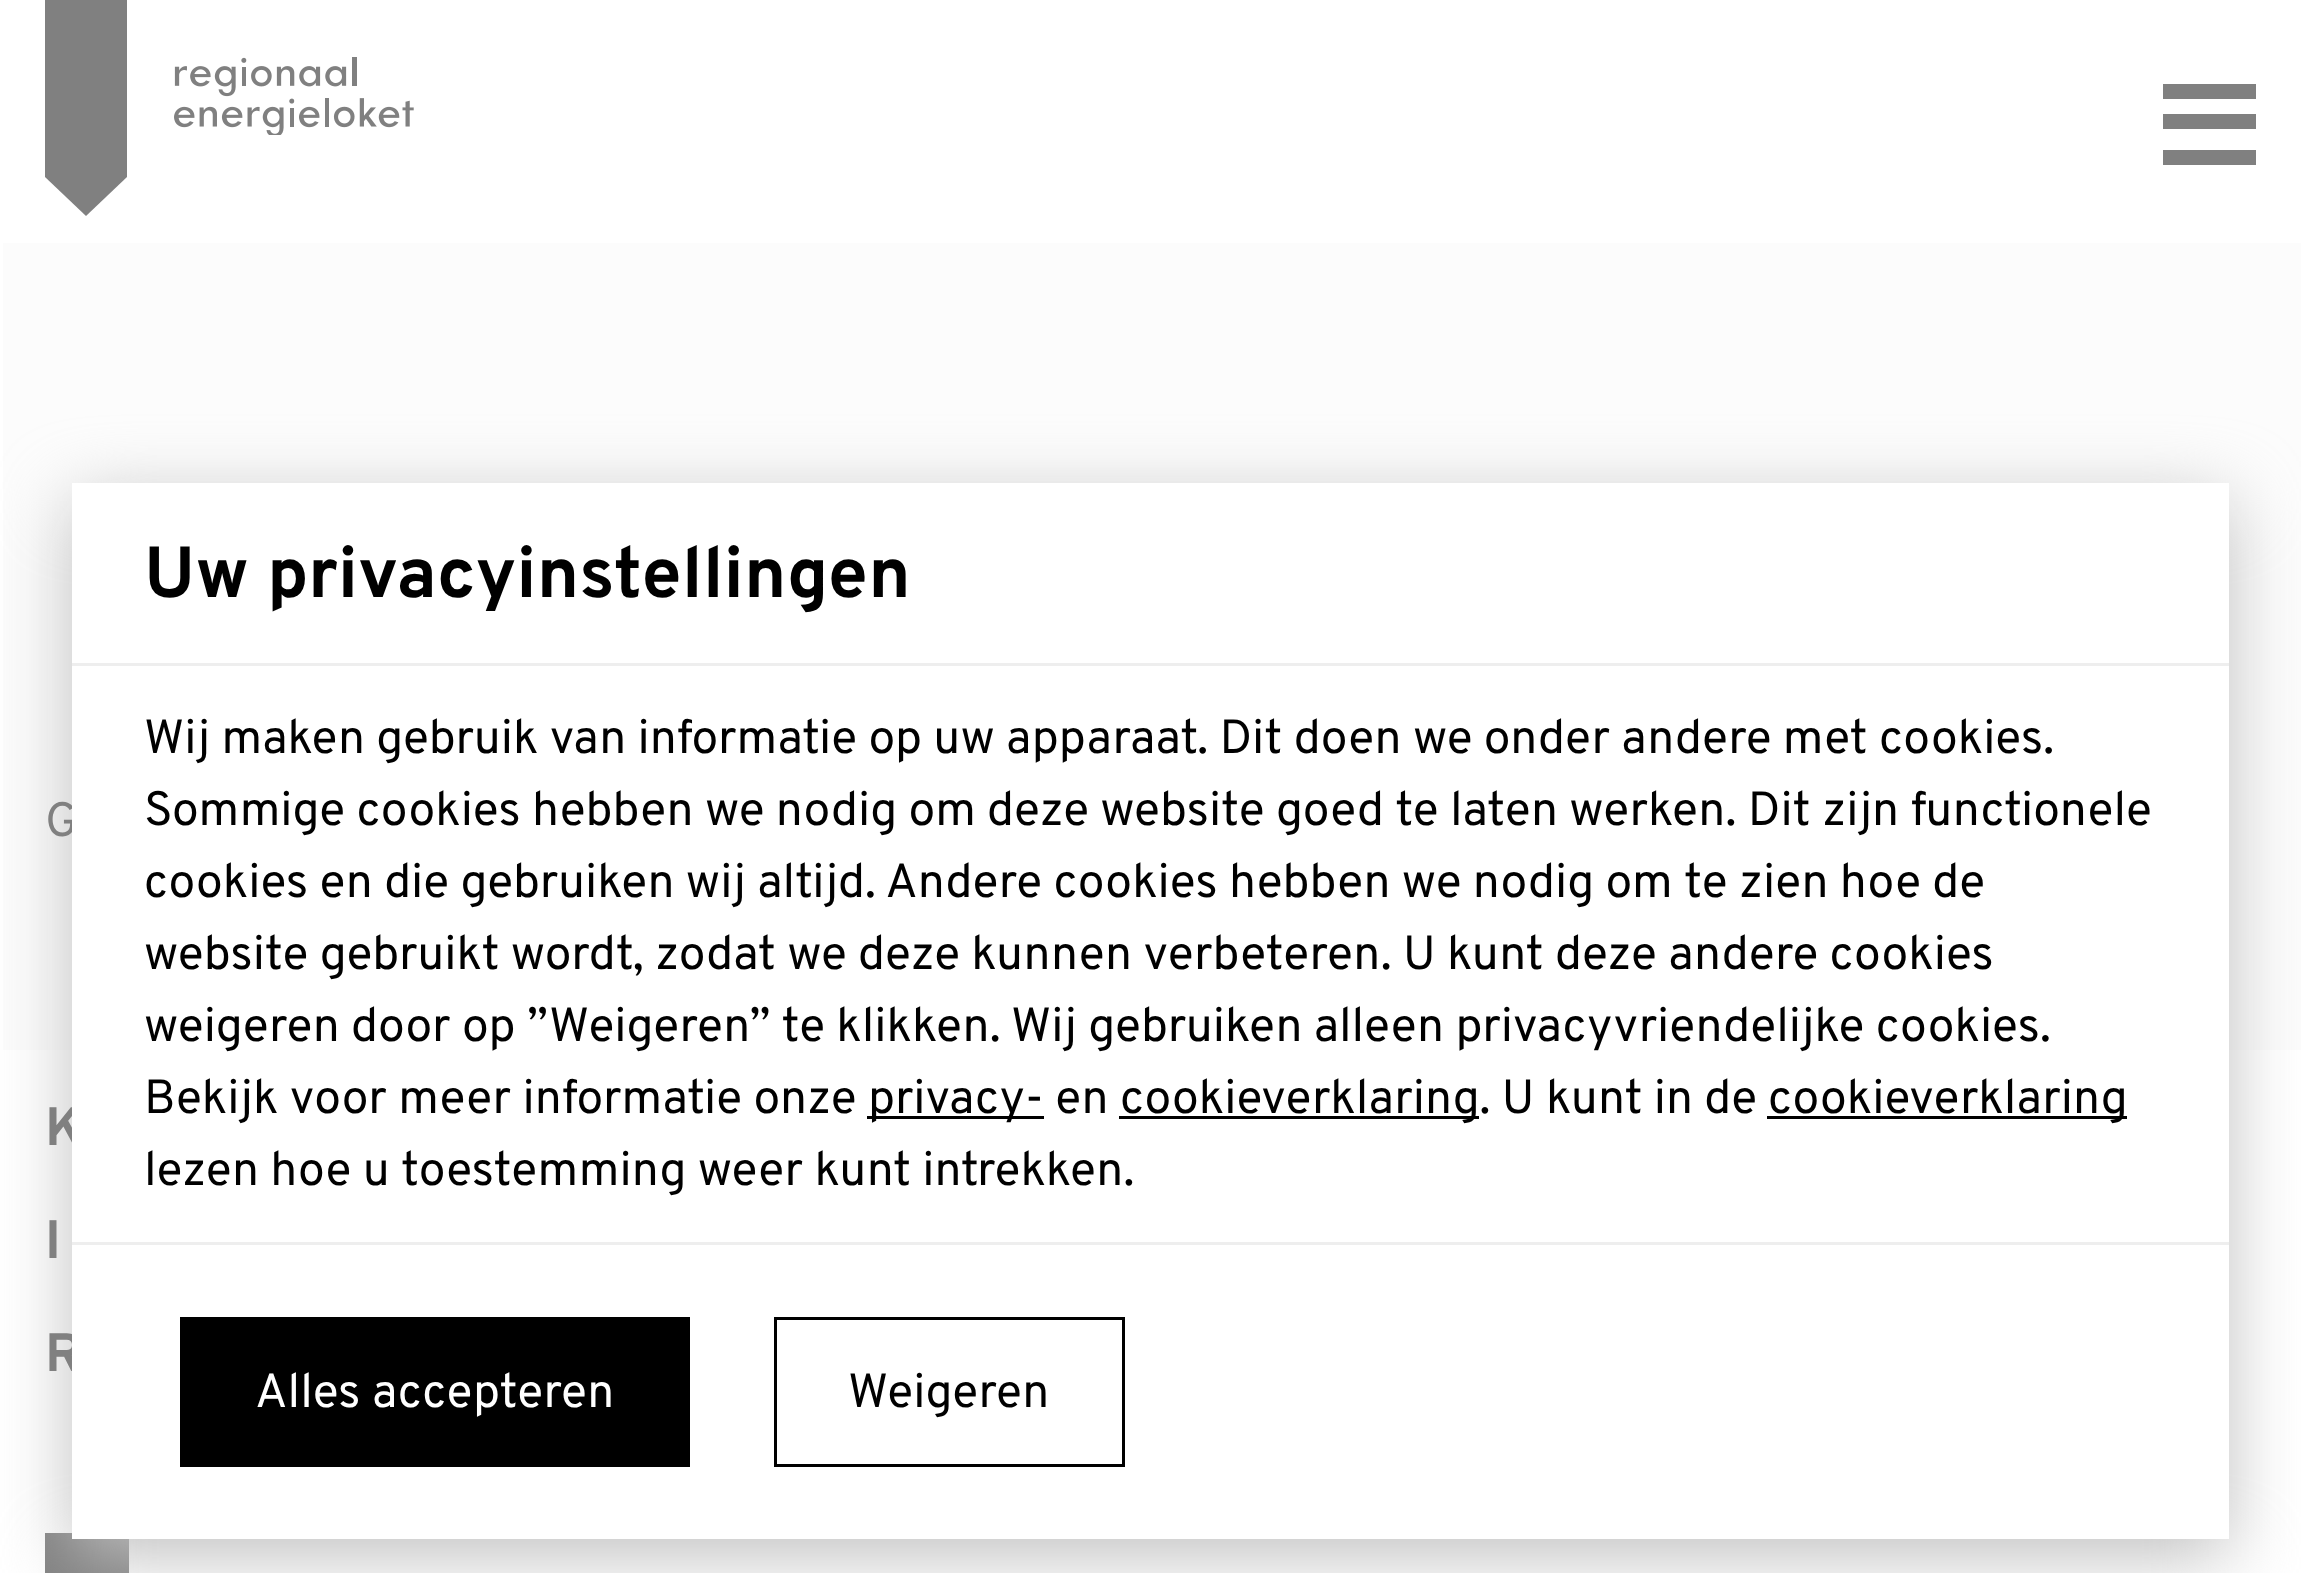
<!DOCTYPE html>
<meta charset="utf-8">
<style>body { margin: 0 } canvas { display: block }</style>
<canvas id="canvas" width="2301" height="1573"></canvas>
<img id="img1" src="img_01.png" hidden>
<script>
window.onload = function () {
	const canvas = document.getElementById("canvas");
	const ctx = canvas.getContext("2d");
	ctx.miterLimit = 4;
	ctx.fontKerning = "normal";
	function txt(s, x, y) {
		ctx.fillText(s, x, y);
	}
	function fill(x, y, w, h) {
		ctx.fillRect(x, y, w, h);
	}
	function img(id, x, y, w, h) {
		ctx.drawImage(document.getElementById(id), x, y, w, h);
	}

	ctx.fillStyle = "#FFFFFF";
	fill(0, 0, 2301, 1573);
	ctx.fillStyle = "#808080";
	ctx.beginPath();
	ctx.moveTo(45, 0);
	ctx.lineTo(127, 0);
	ctx.lineTo(127, 177);
	ctx.lineTo(86, 216);
	ctx.lineTo(45, 177);
	ctx.closePath();
	ctx.fill();
	img("img1", 174, 57, 240, 78);
	fill(2163, 84, 93, 15);
	fill(2163, 114, 93, 15);
	fill(2163, 150, 93, 15);
	ctx.fillStyle = "#FCFCFC";
	fill(3, 243, 2298, 807);
	ctx.fillStyle = "#808080";
	ctx.beginPath();
	ctx.moveTo(45, 1533);
	ctx.lineTo(129, 1533);
	ctx.lineTo(129, 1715);
	ctx.lineTo(87, 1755);
	ctx.lineTo(45, 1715);
	ctx.closePath();
	ctx.fill();
	ctx.fillStyle = "#C0C0C0";
	ctx.filter = "blur(36px)";
	ctx.beginPath();
	ctx.rect(72, 501, 2157, 1056);
	ctx.fill();
	ctx.filter = "none";
	ctx.font = "48px Overpass";
	ctx.fillStyle = "#808080";
	txt("G", 45, 836);
	ctx.font = "bold 54px Overpass";
	txt("K", 45, 1145);
	txt("I", 45, 1258);
	txt("R", 45, 1371);
	ctx.fillStyle = "#FFFFFF";
	fill(72, 483, 2157, 1056);
	ctx.font = "48px Overpass";
	ctx.fillStyle = "#000000";
	txt("lezen hoe u toestemming weer kunt intrekken.", 144, 1185);
	fill(1767, 1116, 360, 3);
	txt("cookieverklaring", 1768, 1113);
	fill(1119, 1116, 360, 3);
	txt("cookieverklaring. U kunt in de", 1120, 1113);
	fill(867, 1116, 177, 3);
	txt("privacy- en", 868, 1113);
	txt("Bekijk voor meer informatie onze", 144, 1113);
	txt("weigeren door op ”Weigeren” te klikken. Wij gebruiken alleen privacyvriendelijke cookies.", 144, 1041);
	txt("website gebruikt wordt, zodat we deze kunnen verbeteren. U kunt deze andere cookies", 144, 969);
	txt("cookies en die gebruiken wij altijd. Andere cookies hebben we nodig om te zien hoe de", 144, 897);
	txt("Sommige cookies hebben we nodig om deze website goed te laten werken. Dit zijn functionele", 144, 825);
	txt("Wij maken gebruik van informatie op uw apparaat. Dit doen we onder andere met cookies.", 144, 753);
	ctx.font = "bold 72px Overpass";
	txt("Uw privacyinstellingen", 144, 597);
	ctx.fillStyle = "#EEEEEE";
	fill(72, 663, 2157, 3);
	ctx.strokeStyle = "#000000";
	ctx.lineWidth = 3;
	ctx.strokeRect(775.5, 1318.5, 348, 147);
	ctx.font = "48px Overpass";
	ctx.fillStyle = "#000000";
	txt("Weigeren", 848, 1407);
	fill(180, 1317, 510, 150);
	ctx.fillStyle = "#FFFFFF";
	txt("Alles accepteren", 255, 1407);
	ctx.fillStyle = "#EEEEEE";
	fill(72, 1242, 2157, 3);
};
</script>
